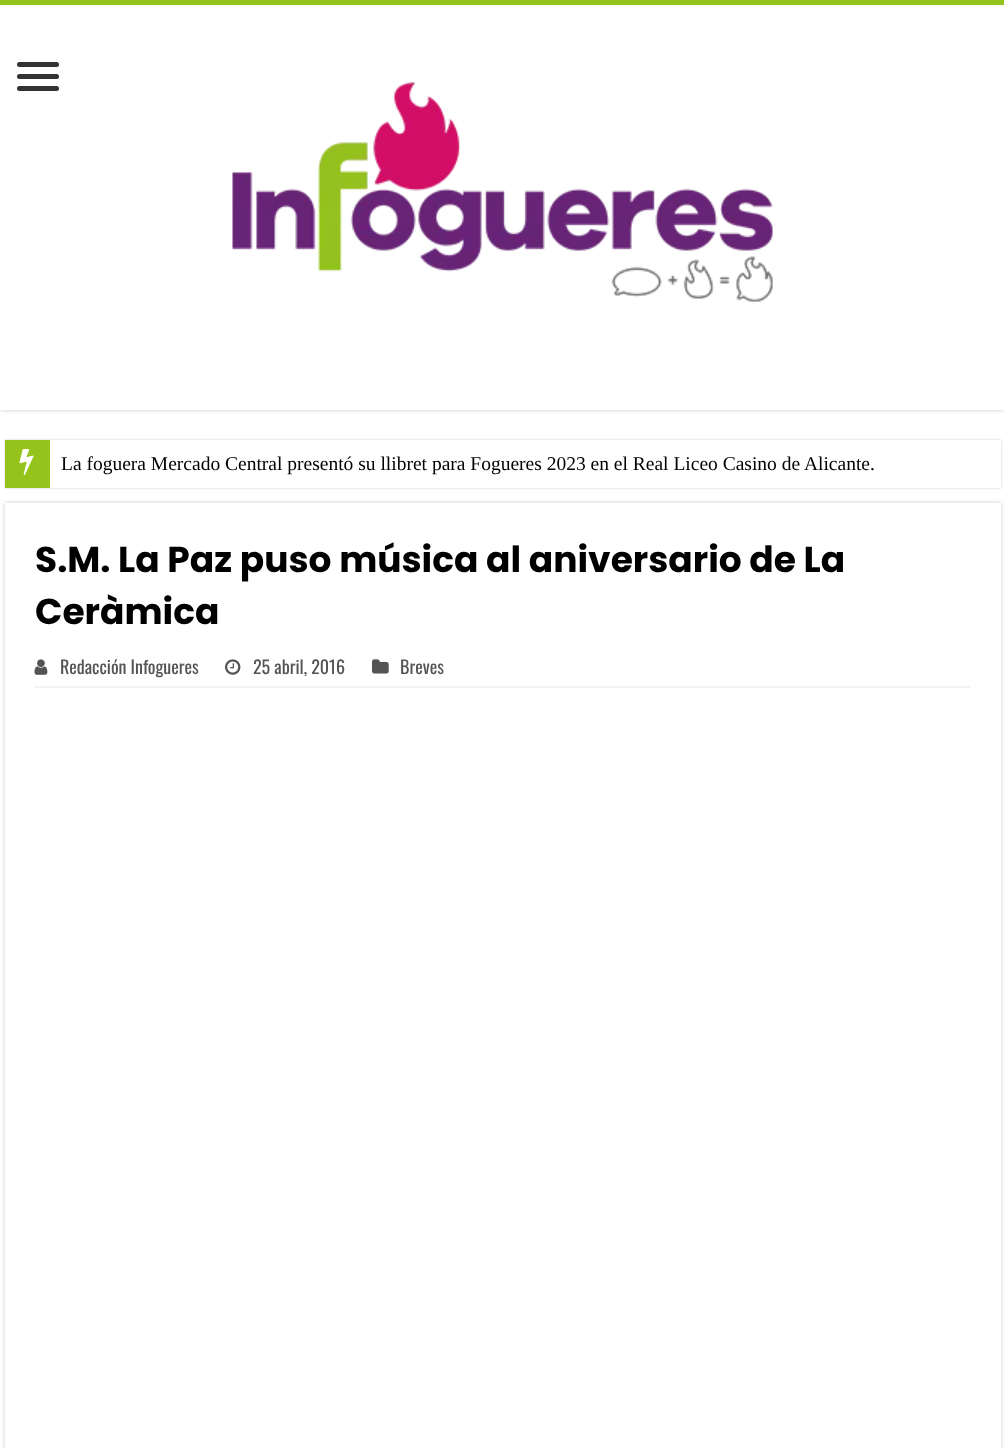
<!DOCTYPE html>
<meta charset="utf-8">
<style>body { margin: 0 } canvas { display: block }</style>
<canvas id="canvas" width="1004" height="1448"></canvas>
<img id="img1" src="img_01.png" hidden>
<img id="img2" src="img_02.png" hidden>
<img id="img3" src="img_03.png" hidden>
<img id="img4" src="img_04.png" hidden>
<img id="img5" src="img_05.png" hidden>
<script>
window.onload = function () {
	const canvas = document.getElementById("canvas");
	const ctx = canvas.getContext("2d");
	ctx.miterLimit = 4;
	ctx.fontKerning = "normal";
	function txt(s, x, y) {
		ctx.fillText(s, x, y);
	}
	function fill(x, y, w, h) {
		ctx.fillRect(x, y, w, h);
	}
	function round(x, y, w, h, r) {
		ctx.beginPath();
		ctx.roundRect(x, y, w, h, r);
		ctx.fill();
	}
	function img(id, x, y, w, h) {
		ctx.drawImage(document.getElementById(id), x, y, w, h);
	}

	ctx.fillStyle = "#FFFFFF";
	fill(0, 0, 1004, 1448);
	ctx.fillStyle = "#CACACA";
	ctx.filter = "blur(2px)";
	ctx.beginPath();
	ctx.rect(0, 0, 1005, 410);
	ctx.fill();
	ctx.filter = "none";
	ctx.fillStyle = "#FFFFFF";
	fill(0, 5, 1004, 405);
	ctx.fillStyle = "#94C41C";
	fill(0, 0, 1004, 5);
	ctx.fillStyle = "#333333";
	round(17, 62, 42, 5, 2.5);
	round(17, 74, 42, 5, 2.5);
	round(17, 86, 42, 5, 2.5);
	img("img1", 232, 82, 541, 220);
	ctx.fillStyle = "#CACACA";
	ctx.filter = "blur(1px)";
	ctx.beginPath();
	ctx.rect(5, 440, 996, 48);
	ctx.fill();
	ctx.filter = "none";
	ctx.fillStyle = "#FFFFFF";
	fill(50, 440, 951, 48);
	ctx.fillStyle = "#94C41C";
	fill(5, 440, 45, 48);
	img("img2", 19, 449, 15, 26);
	ctx.fillStyle = "#CACACA";
	ctx.filter = "blur(2px)";
	ctx.beginPath();
	ctx.rect(5, 503, 996, 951);
	ctx.fill();
	ctx.filter = "none";
	ctx.fillStyle = "#FFFFFF";
	fill(5, 503, 996, 945);
	ctx.fillStyle = "#F2F2F2";
	fill(35, 686, 936, 2);
	img("img3", 34, 659, 14, 16);
	img("img4", 225, 659, 16, 16);
	img("img5", 372, 659, 17, 15);
	ctx.font = "19.5px Liberation Serif";
	ctx.fillStyle = "#000000";
	txt("La foguera Mercado Central presentó su llibret para Fogueres 2023 en el Real Liceo Casino de Alicante.", 61, 470);
	ctx.font = "bold 36px Poppins";
	txt("S.M. La Paz puso música al aniversario de La", 35, 572);
	txt("Ceràmica", 35, 624);
	ctx.font = "18px Oswald";
	ctx.fillStyle = "#545454";
	txt("Redacción Infogueres", 60, 674);
	txt("25 abril, 2016", 253, 674);
	txt("Breves", 400, 674);
};
</script>
